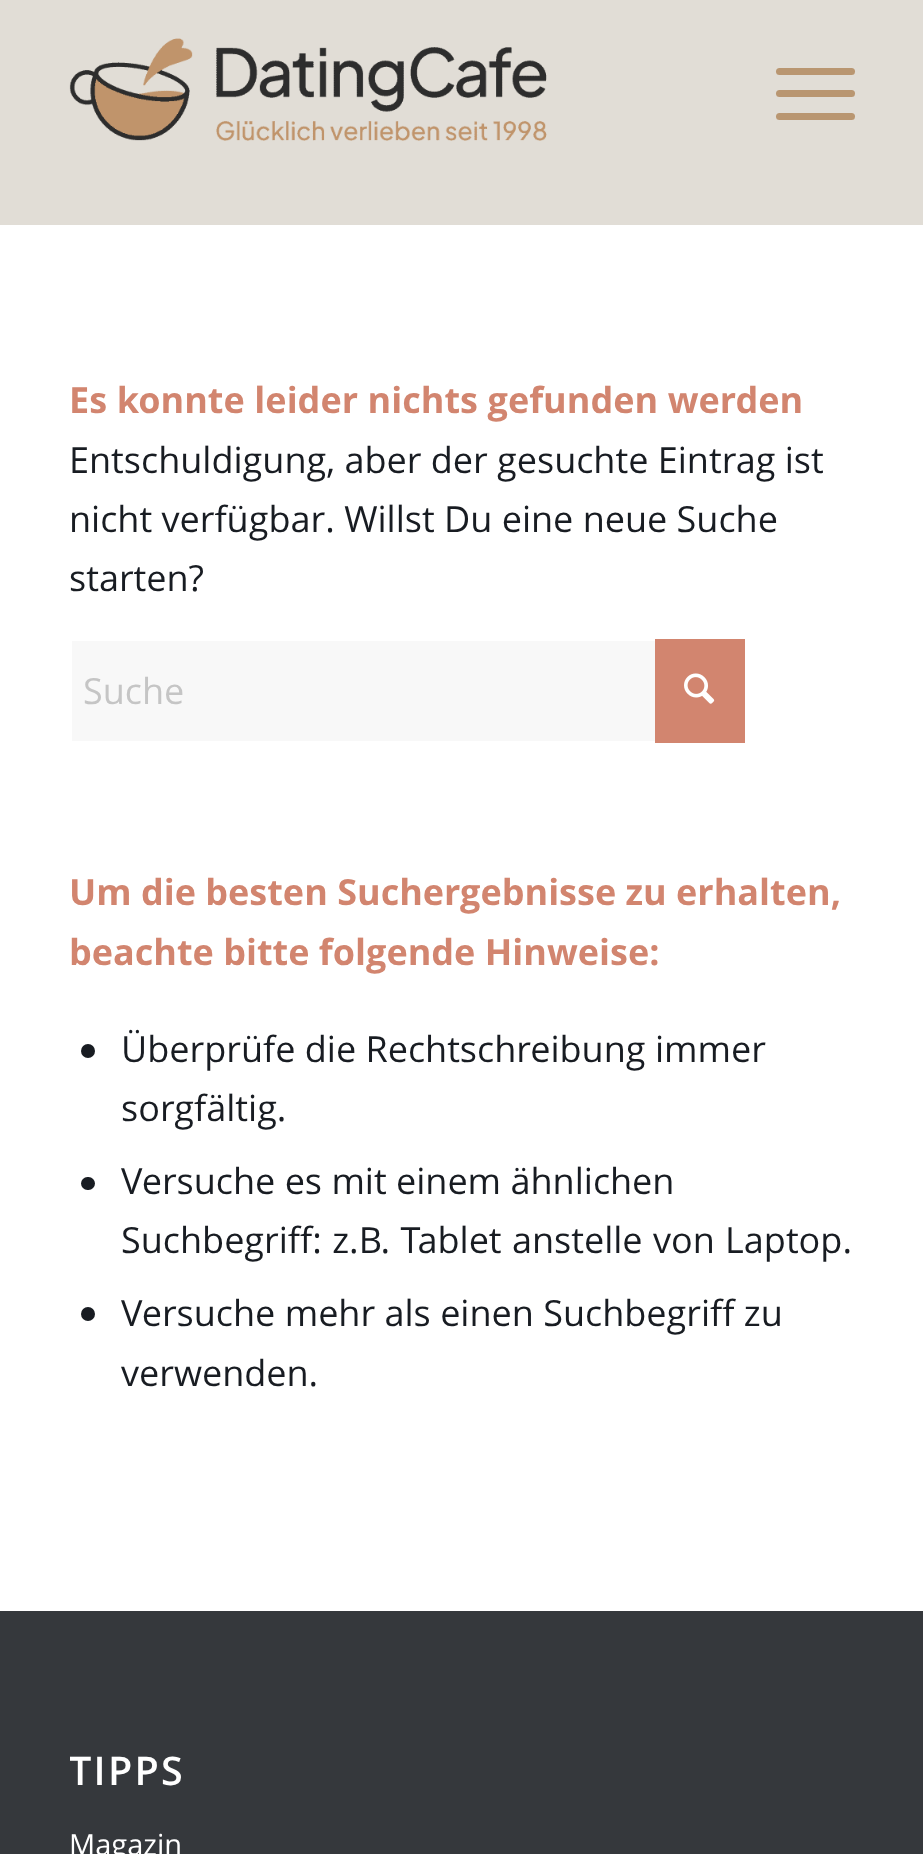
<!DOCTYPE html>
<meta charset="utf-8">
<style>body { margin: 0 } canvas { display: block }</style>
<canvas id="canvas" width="923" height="1854"></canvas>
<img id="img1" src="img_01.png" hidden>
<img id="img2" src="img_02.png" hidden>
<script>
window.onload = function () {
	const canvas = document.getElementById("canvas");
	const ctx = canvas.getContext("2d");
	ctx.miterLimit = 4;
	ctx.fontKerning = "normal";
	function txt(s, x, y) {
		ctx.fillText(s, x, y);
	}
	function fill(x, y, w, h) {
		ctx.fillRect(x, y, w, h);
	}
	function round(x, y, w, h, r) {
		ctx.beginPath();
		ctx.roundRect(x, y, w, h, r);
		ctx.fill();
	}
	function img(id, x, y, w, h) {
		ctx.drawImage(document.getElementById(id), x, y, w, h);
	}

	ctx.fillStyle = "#E1DDD6";
	fill(0, 0, 923, 1854);
	img("img1", 69, 38, 478, 103);
	ctx.fillStyle = "#B99671";
	round(776, 90, 79, 7, 3.5);
	round(776, 68, 79, 7, 3.5);
	round(776, 113, 79, 7, 3.5);
	ctx.fillStyle = "#FFFFFF";
	fill(0, 225, 923, 1386);
	ctx.fillStyle = "#F8F8F8";
	fill(72, 641, 583, 100);
	ctx.fillStyle = "#D2856F";
	fill(655, 639, 90, 104);
	img("img2", 684, 673, 31, 31);
	ctx.fillStyle = "#181C22";
	ctx.beginPath();
	ctx.arc(88, 1051, 7, 0, Math.PI * 2);
	ctx.fill();
	round(81, 1177, 14, 13, 6.5);
	ctx.beginPath();
	ctx.arc(88, 1314, 7, 0, Math.PI * 2);
	ctx.fill();
	ctx.fillStyle = "#35383C";
	fill(0, 1611, 923, 243);
	ctx.wordSpacing = "0.25px";
	ctx.font = "bold 36px Open Sans";
	ctx.fillStyle = "#D2856F";
	txt("Es konnte leider nichts gefunden werden", 69, 413);
	ctx.wordSpacing = "0px";
	ctx.font = "36px Open Sans";
	ctx.fillStyle = "#181C22";
	txt("Entschuldigung, aber der gesuchte Eintrag ist", 69, 473);
	txt("nicht verfügbar. Willst Du eine neue Suche", 69, 532);
	txt("starten?", 69, 591);
	ctx.fillStyle = "#C5C5C5";
	txt("Suche", 83, 704);
	ctx.font = "bold 36px Open Sans";
	ctx.fillStyle = "#D2856F";
	txt("Um die besten Suchergebnisse zu erhalten,", 69, 905);
	txt("beachte bitte folgende Hinweise:", 69, 965);
	ctx.font = "36px Open Sans";
	ctx.fillStyle = "#181C22";
	txt("Überprüfe die Rechtschreibung immer", 121, 1062);
	txt("sorgfältig.", 121, 1121);
	txt("Versuche es mit einem ähnlichen", 121, 1194);
	ctx.wordSpacing = "1px";
	txt("Suchbegriff: z.B. Tablet anstelle von Laptop.", 121, 1253);
	ctx.wordSpacing = "0px";
	txt("Versuche mehr als einen Suchbegriff zu", 121, 1326);
	txt("verwenden.", 121, 1386);
	ctx.save();
	ctx.beginPath();
	ctx.rect(70, 1715, 785, 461);
	ctx.clip();
	ctx.letterSpacing = "2.25px";
	ctx.font = "600 39.5px Open Sans";
	ctx.fillStyle = "#FFFFFF";
	txt("TIPPS", 69, 1785);
	ctx.restore();
	ctx.font = "29px Open Sans";
	ctx.fillStyle = "#FFFFFF";
	txt("Magazin", 69, 1855);
};
</script>
